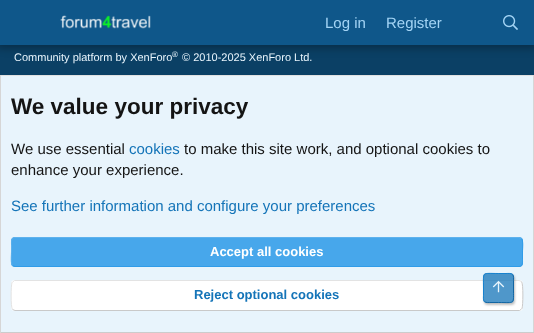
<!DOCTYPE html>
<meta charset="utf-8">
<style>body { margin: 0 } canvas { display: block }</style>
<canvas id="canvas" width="534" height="333"></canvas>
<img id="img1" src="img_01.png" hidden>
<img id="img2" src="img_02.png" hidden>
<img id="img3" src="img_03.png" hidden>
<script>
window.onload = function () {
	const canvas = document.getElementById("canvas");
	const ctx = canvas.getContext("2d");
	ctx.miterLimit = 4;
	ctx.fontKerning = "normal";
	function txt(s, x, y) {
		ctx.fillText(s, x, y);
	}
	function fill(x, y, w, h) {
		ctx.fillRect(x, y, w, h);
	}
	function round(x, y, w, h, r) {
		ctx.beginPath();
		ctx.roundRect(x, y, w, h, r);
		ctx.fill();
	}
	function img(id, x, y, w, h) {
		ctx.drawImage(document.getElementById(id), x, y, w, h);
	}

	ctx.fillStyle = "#0B4065";
	fill(0, 0, 534, 333);
	ctx.fillStyle = "rgba(0, 0, 0, 0.3)";
	ctx.filter = "blur(4px)";
	ctx.beginPath();
	ctx.rect(-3, -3, 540, 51);
	ctx.fill();
	ctx.filter = "none";
	ctx.fillStyle = "#0F578A";
	fill(0, 0, 534, 45);
	img("img1", 60, 15, 91, 14);
	img("img2", 503, 15, 15, 15);
	ctx.fillStyle = "#E8F4FC";
	fill(1, 76, 532, 256);
	ctx.fillStyle = "#E0E0E0";
	fill(0, 75, 534, 1);
	ctx.fillStyle = "#D6D6D6";
	fill(533, 75, 1, 258);
	ctx.fillStyle = "#CCCCCC";
	fill(0, 332, 534, 1);
	ctx.fillStyle = "#D6D6D6";
	fill(0, 75, 1, 258);
	ctx.fillStyle = "#47A7EB";
	round(11, 237, 512, 30, 4);
	ctx.beginPath();
	ctx.moveTo(521.5, 238.5);
	ctx.bezierCurveTo(523.5, 240.5, 522.5, 249, 522.5, 252);
	ctx.lineTo(522.5, 259.5);
	ctx.bezierCurveTo(522.5, 262, 523, 266.5, 519, 266.5);
	ctx.lineTo(15, 266.5);
	ctx.lineTo(12.5, 265.5);
	ctx.strokeStyle = "#309CE8";
	ctx.stroke();
	ctx.beginPath();
	ctx.moveTo(12.5, 265.5);
	ctx.bezierCurveTo(10.5, 263.5, 11.5, 255, 11.5, 252);
	ctx.lineTo(11.5, 244.5);
	ctx.bezierCurveTo(11.5, 242, 11, 237.5, 15, 237.5);
	ctx.lineTo(519, 237.5);
	ctx.lineTo(521.5, 238.5);
	ctx.strokeStyle = "#5EB2ED";
	ctx.stroke();
	ctx.fillStyle = "#FFFFFF";
	round(11, 280, 512, 31, 4);
	ctx.beginPath();
	ctx.moveTo(521.5, 281.5);
	ctx.bezierCurveTo(523.5, 283.5, 523, 306.5, 522, 308.5);
	ctx.lineTo(521.5, 309);
	ctx.lineTo(519.5, 310.5);
	ctx.lineTo(15, 310.5);
	ctx.lineTo(12.5, 309.5);
	ctx.strokeStyle = "#C9C9C9";
	ctx.stroke();
	ctx.beginPath();
	ctx.moveTo(12.5, 309.5);
	ctx.bezierCurveTo(10.5, 307.5, 11, 284.5, 12, 282.5);
	ctx.lineTo(12.5, 282);
	ctx.lineTo(14.5, 280.5);
	ctx.lineTo(519, 280.5);
	ctx.lineTo(521.5, 281.5);
	ctx.strokeStyle = "#E3E3E3";
	ctx.stroke();
	ctx.save();
	ctx.beginPath();
	ctx.moveTo(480, 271);
	ctx.lineTo(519, 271);
	ctx.lineTo(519, 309);
	ctx.lineTo(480, 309);
	ctx.closePath();
	ctx.moveTo(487, 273);
	ctx.lineTo(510, 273);
	ctx.bezierCurveTo(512, 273, 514, 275, 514, 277);
	ctx.lineTo(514, 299);
	ctx.bezierCurveTo(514, 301, 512, 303, 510, 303);
	ctx.lineTo(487, 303);
	ctx.bezierCurveTo(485, 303, 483, 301, 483, 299);
	ctx.lineTo(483, 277);
	ctx.bezierCurveTo(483, 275, 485, 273, 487, 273);
	ctx.closePath();
	ctx.clip("evenodd");
	ctx.fillStyle = "rgba(0, 0, 0, 0.25)";
	ctx.filter = "blur(1px)";
	ctx.beginPath();
	ctx.roundRect(484, 275, 31, 30, 4);
	ctx.fill();
	ctx.filter = "none";
	ctx.restore();
	ctx.fillStyle = "rgba(20, 116, 184, 0.75)";
	round(483, 273, 31, 30, 4);
	ctx.beginPath();
	ctx.moveTo(512.5, 274.5);
	ctx.bezierCurveTo(514, 276, 513.5, 279, 513.5, 280.5);
	ctx.lineTo(513.5, 288);
	ctx.bezierCurveTo(513.5, 305, 515.5, 302.5, 498.5, 302.5);
	ctx.lineTo(491, 302.5);
	ctx.bezierCurveTo(489, 302.5, 486, 303, 484.5, 301.5);
	ctx.strokeStyle = "#1265A1";
	ctx.stroke();
	ctx.beginPath();
	ctx.moveTo(484.5, 301.5);
	ctx.bezierCurveTo(483, 300, 483.5, 297, 483.5, 295.5);
	ctx.lineTo(483.5, 288);
	ctx.bezierCurveTo(483.5, 271, 481.5, 273.5, 498.5, 273.5);
	ctx.lineTo(506, 273.5);
	ctx.bezierCurveTo(508, 273.5, 511, 273, 512.5, 274.5);
	ctx.strokeStyle = "#1782CF";
	ctx.stroke();
	img("img3", 492, 280, 13, 13);
	ctx.font = "15px Liberation Sans";
	ctx.fillStyle = "#A3D4F5";
	txt("Log in", 325, 28);
	txt("Register", 386, 28);
	ctx.font = "11px Liberation Sans";
	ctx.fillStyle = "#E8F4FC";
	txt("Community platform by XenForo", 14, 61);
	ctx.font = "8px Liberation Sans";
	txt("®", 172, 57);
	ctx.font = "11px Liberation Sans";
	txt("© 2010-2025 XenForo Ltd.", 182, 61);
	ctx.font = "bold 22.5px Liberation Sans";
	ctx.fillStyle = "#141414";
	txt("We value your privacy", 11, 114);
	ctx.font = "15px Liberation Sans";
	txt("We use essential", 11, 154);
	ctx.fillStyle = "#1474B8";
	txt("cookies", 129, 154);
	ctx.fillStyle = "#141414";
	txt("to make this site work, and optional cookies to", 184, 154);
	txt("enhance your experience.", 11, 175);
	ctx.fillStyle = "#1474B8";
	txt("See further information and configure your preferences", 11, 211);
	ctx.font = "bold 13px Liberation Sans";
	ctx.fillStyle = "#FFFFFF";
	txt("Accept all cookies", 210, 256);
	ctx.fillStyle = "#1474B8";
	txt("Reject optional cookies", 194, 299);
};
</script>
